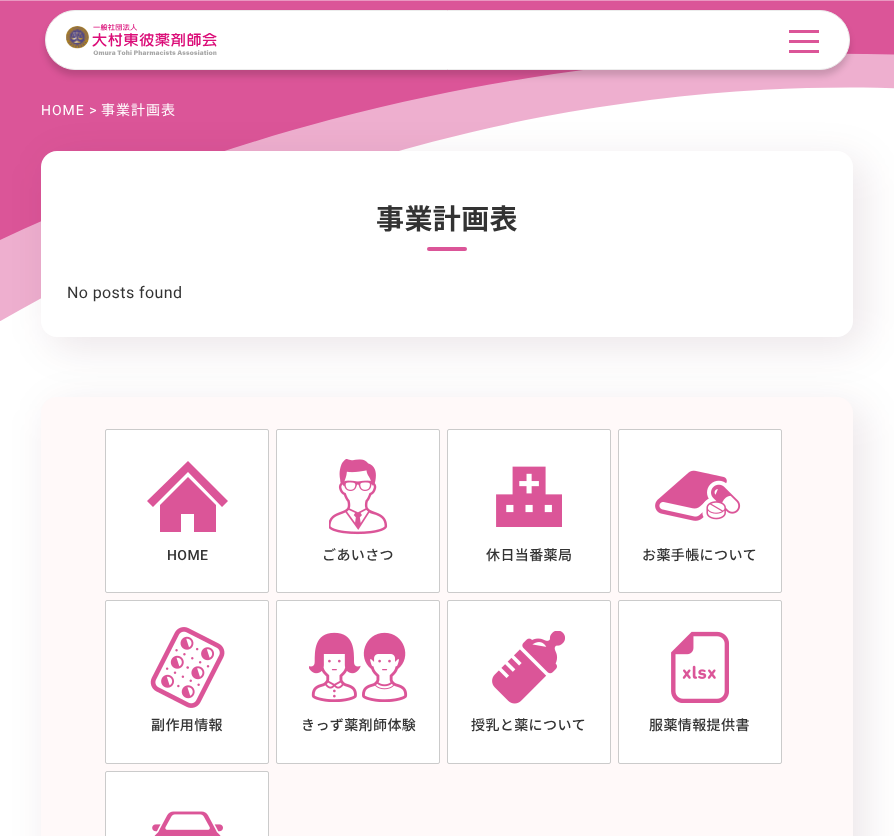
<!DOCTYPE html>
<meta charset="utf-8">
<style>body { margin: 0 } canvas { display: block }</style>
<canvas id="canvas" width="894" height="836"></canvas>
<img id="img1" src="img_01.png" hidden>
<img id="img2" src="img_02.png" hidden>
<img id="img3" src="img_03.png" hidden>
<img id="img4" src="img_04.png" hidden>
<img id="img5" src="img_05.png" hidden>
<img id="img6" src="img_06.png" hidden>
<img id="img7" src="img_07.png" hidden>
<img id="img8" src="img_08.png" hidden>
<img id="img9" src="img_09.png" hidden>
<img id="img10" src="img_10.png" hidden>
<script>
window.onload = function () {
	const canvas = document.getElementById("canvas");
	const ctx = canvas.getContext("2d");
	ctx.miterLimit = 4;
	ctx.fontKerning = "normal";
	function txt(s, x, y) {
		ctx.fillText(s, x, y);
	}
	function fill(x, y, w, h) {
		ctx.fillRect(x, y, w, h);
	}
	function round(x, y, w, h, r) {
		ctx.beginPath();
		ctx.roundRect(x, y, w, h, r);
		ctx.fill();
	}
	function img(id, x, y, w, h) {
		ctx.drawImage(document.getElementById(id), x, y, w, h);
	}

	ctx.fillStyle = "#FFFFFF";
	fill(0, 0, 894, 836);
	img("img1", 0, 0, 894, 321);
	ctx.fillStyle = "rgba(0, 0, 0, 0.15)";
	ctx.filter = "blur(3px)";
	ctx.beginPath();
	ctx.roundRect(45, 16, 805, 60, 30);
	ctx.fill();
	ctx.filter = "none";
	ctx.fillStyle = "#FFFFFF";
	ctx.beginPath();
	ctx.roundRect(45.5, 10.5, 804, 59, 29.5);
	ctx.fill();
	ctx.strokeStyle = "#ECECEC";
	ctx.stroke();
	img("img2", 66, 24, 151, 31);
	ctx.fillStyle = "#DB5598";
	fill(789, 40, 30, 3);
	fill(789, 30, 30, 3);
	fill(789, 50, 30, 3);
	ctx.fillStyle = "rgba(59, 0, 30, 0.1)";
	ctx.filter = "blur(20px)";
	ctx.beginPath();
	ctx.roundRect(51, 161, 812, 186, 16);
	ctx.fill();
	ctx.filter = "none";
	ctx.fillStyle = "#FFFFFF";
	round(41, 151, 812, 186, 16);
	ctx.fillStyle = "#DB5598";
	round(427, 247, 40, 4, 2);
	ctx.fillStyle = "rgba(59, 0, 30, 0.1)";
	ctx.filter = "blur(20px)";
	ctx.beginPath();
	ctx.roundRect(51, 407, 812, 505, 16);
	ctx.fill();
	ctx.filter = "none";
	ctx.fillStyle = "#FFF9F9";
	round(41, 397, 812, 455, 16);
	ctx.fillStyle = "#FFFFFF";
	ctx.beginPath();
	ctx.roundRect(105.5, 429.5, 163, 163, 1.5);
	ctx.fill();
	ctx.strokeStyle = "#CBCBCB";
	ctx.stroke();
	ctx.fillStyle = "#DB5598";
	ctx.beginPath();
	ctx.moveTo(216, 489);
	ctx.lineTo(188, 461);
	ctx.lineTo(147, 501);
	ctx.lineTo(153, 507);
	ctx.lineTo(188, 472);
	ctx.lineTo(222, 507);
	ctx.lineTo(228, 501);
	ctx.closePath();
	ctx.fill();
	ctx.beginPath();
	ctx.moveTo(160, 505);
	ctx.lineTo(160, 532);
	ctx.lineTo(181, 532);
	ctx.lineTo(181, 514);
	ctx.lineTo(194, 514);
	ctx.lineTo(194, 532);
	ctx.lineTo(216, 532);
	ctx.lineTo(216, 505);
	ctx.lineTo(188, 477);
	ctx.closePath();
	ctx.fill();
	ctx.fillStyle = "#FFFFFF";
	ctx.beginPath();
	ctx.roundRect(276.5, 429.5, 163, 163, 1.5);
	ctx.fill();
	ctx.stroke();
	img("img3", 329, 459, 59, 76);
	ctx.beginPath();
	ctx.roundRect(447.5, 429.5, 163, 163, 1.5);
	ctx.fill();
	ctx.stroke();
	img("img4", 496, 466, 66, 61);
	ctx.beginPath();
	ctx.roundRect(618.5, 429.5, 163, 163, 1.5);
	ctx.fill();
	ctx.stroke();
	img("img5", 655, 470, 86, 51);
	ctx.beginPath();
	ctx.roundRect(105.5, 600.5, 163, 163, 1.5);
	ctx.fill();
	ctx.stroke();
	img("img6", 150, 627, 75, 81);
	ctx.beginPath();
	ctx.roundRect(276.5, 600.5, 163, 163, 1.5);
	ctx.fill();
	ctx.stroke();
	img("img7", 309, 632, 99, 70);
	ctx.beginPath();
	ctx.roundRect(447.5, 600.5, 163, 163, 1.5);
	ctx.fill();
	ctx.stroke();
	img("img8", 492, 631, 73, 73);
	ctx.beginPath();
	ctx.roundRect(618.5, 600.5, 163, 163, 1.5);
	ctx.fill();
	ctx.stroke();
	img("img9", 671, 631, 58, 72);
	ctx.beginPath();
	ctx.roundRect(105.5, 771.5, 163, 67, 1.5);
	ctx.fill();
	ctx.stroke();
	img("img10", 152, 811, 71, 25);
	ctx.letterSpacing = "1px";
	ctx.font = "14px Roboto";
	txt("HOME >", 41, 115);
	ctx.font = "14px Noto Sans JP";
	txt("事業計画表", 101, 115);
	ctx.letterSpacing = "0.4px";
	ctx.font = "bold 28px Noto Sans JP";
	ctx.fillStyle = "#333333";
	txt("事業計画表", 376, 229);
	ctx.font = "16px Roboto";
	txt("No posts found", 67, 298);
	ctx.font = "500 14px Roboto";
	txt("HOME", 167, 560);
	ctx.font = "500 14px Noto Sans JP";
	txt("ごあいさつ", 322, 560);
	txt("休日当番薬局", 486, 560);
	txt("お薬手帳について", 642, 560);
	txt("副作用情報", 151, 730);
	txt("きっず薬剤師体験", 301, 730);
	txt("授乳と薬について", 471, 730);
	txt("服薬情報提供書", 649, 730);
};
</script>
